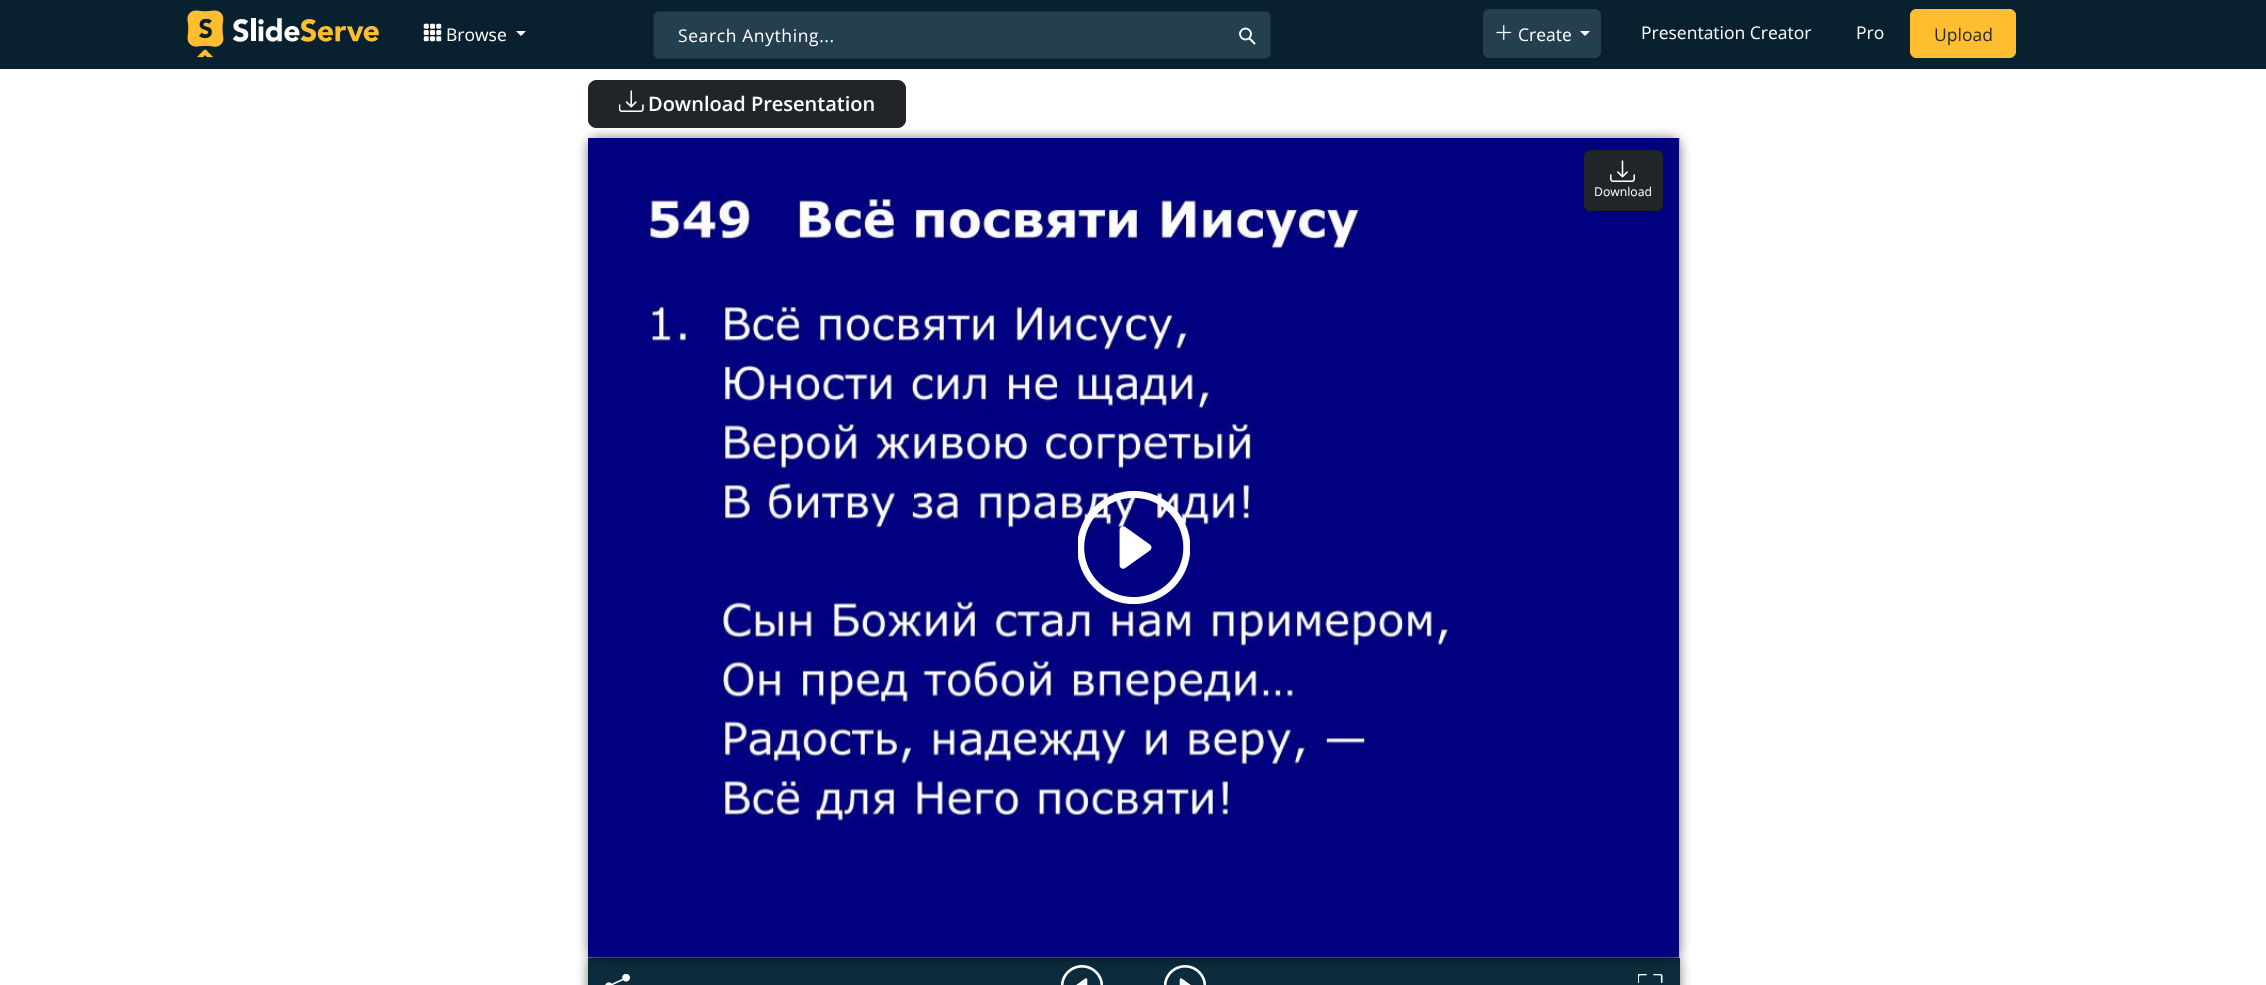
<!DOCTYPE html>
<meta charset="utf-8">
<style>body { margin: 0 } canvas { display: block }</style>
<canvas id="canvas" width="2266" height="985"></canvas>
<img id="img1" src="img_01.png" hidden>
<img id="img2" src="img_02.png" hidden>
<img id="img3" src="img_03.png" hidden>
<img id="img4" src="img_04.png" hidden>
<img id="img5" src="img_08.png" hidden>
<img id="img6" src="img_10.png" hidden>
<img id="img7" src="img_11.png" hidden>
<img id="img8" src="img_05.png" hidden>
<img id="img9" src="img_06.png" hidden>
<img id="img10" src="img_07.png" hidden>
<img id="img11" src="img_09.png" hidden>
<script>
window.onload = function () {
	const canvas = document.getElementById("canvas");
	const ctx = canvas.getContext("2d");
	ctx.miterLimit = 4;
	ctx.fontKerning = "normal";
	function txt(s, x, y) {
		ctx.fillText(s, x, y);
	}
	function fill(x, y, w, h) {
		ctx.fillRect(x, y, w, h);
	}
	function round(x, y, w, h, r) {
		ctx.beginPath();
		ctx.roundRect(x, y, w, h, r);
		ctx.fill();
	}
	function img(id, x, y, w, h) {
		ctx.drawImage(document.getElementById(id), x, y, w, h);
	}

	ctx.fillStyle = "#FFFFFF";
	fill(0, 0, 2266, 985);
	ctx.fillStyle = "#09212E";
	fill(0, 0, 2266, 68);
	ctx.fillStyle = "#061924";
	fill(0, 68, 2266, 1);
	img("img1", 187, 10, 192, 48);
	img("img2", 423, 23, 19, 19);
	ctx.fillStyle = "#FFFFFF";
	ctx.beginPath();
	ctx.moveTo(516, 31);
	ctx.lineTo(526, 31);
	ctx.lineTo(521, 36);
	ctx.closePath();
	ctx.fill();
	ctx.fillStyle = "#243F4E";
	ctx.beginPath();
	ctx.roundRect(1483.5, 9.5, 117, 48, 5.5);
	ctx.fill();
	ctx.strokeStyle = "#243F4E";
	ctx.stroke();
	img("img3", 1496, 25, 16, 15);
	ctx.fillStyle = "#FFFFFF";
	ctx.beginPath();
	ctx.moveTo(1580, 31);
	ctx.lineTo(1590, 31);
	ctx.lineTo(1585, 36);
	ctx.closePath();
	ctx.fill();
	ctx.fillStyle = "#FFBE2F";
	ctx.beginPath();
	ctx.roundRect(1910.5, 9.5, 105, 48, 5.5);
	ctx.fill();
	ctx.strokeStyle = "#FFBE2F";
	ctx.stroke();
	ctx.fillStyle = "#243F4E";
	round(653, 11, 618, 48, 6);
	ctx.beginPath();
	ctx.arc(1245.5, 34, 5.5, 0, Math.PI * 2);
	ctx.strokeStyle = "#FFFFFF";
	ctx.lineWidth = 1.9;
	ctx.stroke();
	ctx.beginPath();
	ctx.moveTo(1254.5, 43.5);
	ctx.lineTo(1249.5, 38.5);
	ctx.lineCap = "round";
	ctx.lineJoin = "round";
	ctx.stroke();
	ctx.beginPath();
	ctx.roundRect(653.5, 11.5, 617, 47, 5.5);
	ctx.strokeStyle = "#152E40";
	ctx.lineWidth = 1;
	ctx.lineJoin = "miter";
	ctx.stroke();
	ctx.fillStyle = "#212529";
	ctx.beginPath();
	ctx.roundRect(588.5, 80.5, 317, 47, 7.5);
	ctx.fill();
	ctx.strokeStyle = "#212529";
	ctx.stroke();
	img("img4", 619, 90, 25, 22);
	ctx.fillStyle = "rgba(0, 0, 0, 0.5)";
	ctx.filter = "blur(6px)";
	ctx.beginPath();
	ctx.roundRect(588, 958, 1092, 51, 6);
	ctx.fill();
	ctx.filter = "none";
	ctx.fillStyle = "#0C2B3D";
	fill(588, 958, 1092, 27);
	img("img5", 605, 974, 25, 11);
	img("img6", 1164, 965, 42, 20);
	img("img7", 1638, 974, 25, 10);
	ctx.fillStyle = "rgba(0, 0, 0, 0.5)";
	ctx.filter = "blur(6px)";
	ctx.beginPath();
	ctx.roundRect(588, 138, 1092, 820, 9);
	ctx.fill();
	ctx.filter = "none";
	img("img8", 588, 138, 1092, 820);
	ctx.fillStyle = "#212529";
	ctx.beginPath();
	ctx.roundRect(1584.5, 150.5, 78, 60, 5.5);
	ctx.fill();
	ctx.stroke();
	img("img9", 1610, 160, 25, 22);
	img("img10", 1078, 491, 112, 113);
	img("img11", 1061, 965, 42, 20);
	ctx.font = "17.5px Open Sans";
	ctx.fillStyle = "#FFFFFF";
	txt("Browse", 446, 41);
	txt("Create", 1518, 41);
	txt("Presentation Creator", 1641, 39);
	txt("Pro", 1856, 39);
	ctx.fillStyle = "#2B2A2A";
	txt("Upload", 1934, 41);
	ctx.letterSpacing = "0.6px";
	ctx.fillStyle = "#FFFFFF";
	txt("Search Anything...", 678, 42);
	ctx.letterSpacing = "0px";
	ctx.font = "600 20px Open Sans";
	txt("Download Presentation", 648, 111);
	ctx.font = "12.25px Open Sans";
	txt("Download", 1594, 196);
};
</script>
